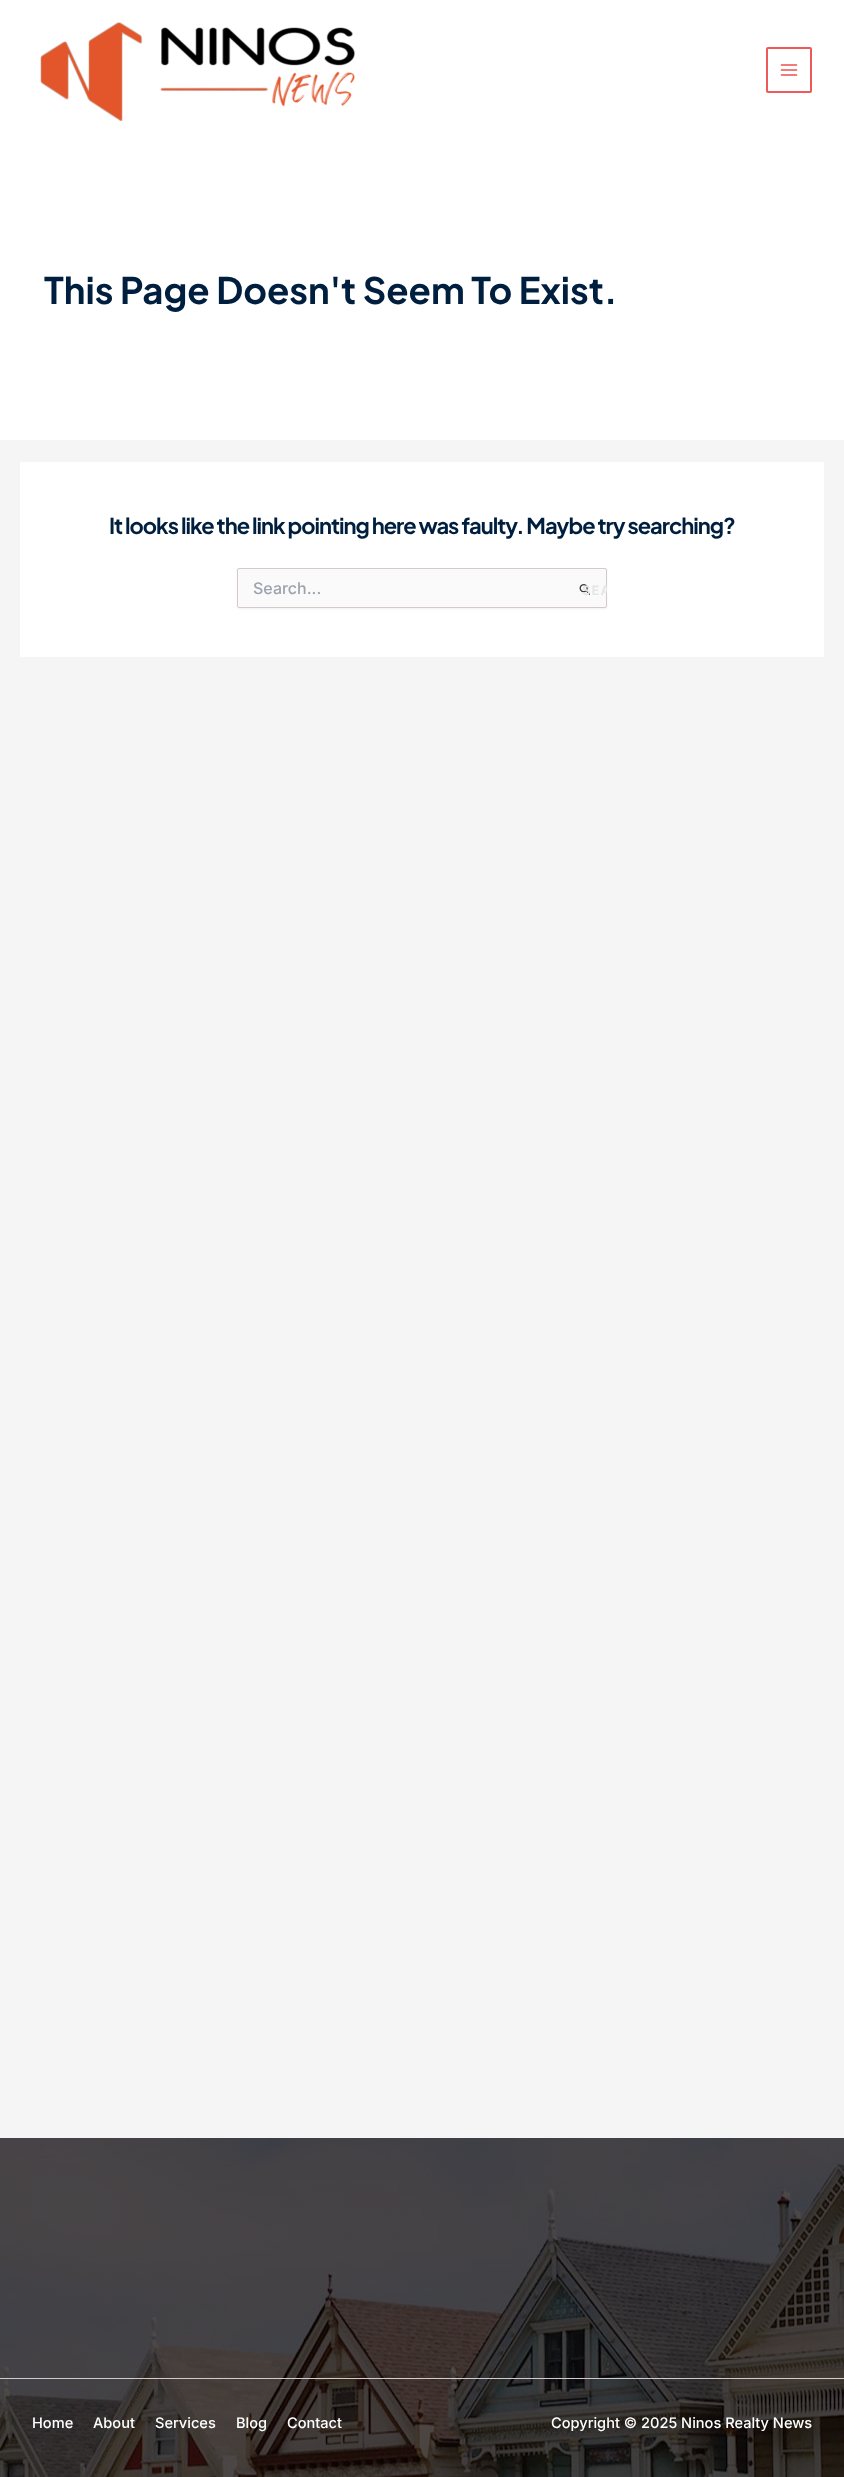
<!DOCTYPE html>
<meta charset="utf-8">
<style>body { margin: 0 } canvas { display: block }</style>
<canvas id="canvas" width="844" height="2477"></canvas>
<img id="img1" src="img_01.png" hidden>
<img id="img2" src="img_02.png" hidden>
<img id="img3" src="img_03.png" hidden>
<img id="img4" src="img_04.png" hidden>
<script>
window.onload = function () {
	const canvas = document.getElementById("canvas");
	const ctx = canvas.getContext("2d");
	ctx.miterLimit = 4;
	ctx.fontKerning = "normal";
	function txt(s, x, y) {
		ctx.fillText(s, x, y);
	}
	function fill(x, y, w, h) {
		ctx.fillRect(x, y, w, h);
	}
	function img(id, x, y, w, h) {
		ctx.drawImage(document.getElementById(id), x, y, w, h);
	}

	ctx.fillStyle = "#F5F5F5";
	fill(0, 0, 844, 2477);
	ctx.fillStyle = "#FFFFFF";
	fill(0, 0, 844, 440);
	img("img1", 40, 22, 315, 100);
	ctx.beginPath();
	ctx.roundRect(767, 48, 44, 44, 1);
	ctx.strokeStyle = "#EE5959";
	ctx.lineWidth = 2;
	ctx.stroke();
	img("img2", 780, 64, 18, 12);
	fill(20, 462, 804, 195);
	ctx.fillStyle = "rgba(0, 0, 0, 0.05)";
	ctx.filter = "blur(1px)";
	ctx.beginPath();
	ctx.roundRect(237, 569, 370, 40, 2);
	ctx.fill();
	ctx.filter = "none";
	ctx.fillStyle = "#FAFAFA";
	ctx.beginPath();
	ctx.roundRect(237.5, 568.5, 369, 39, 1.5);
	ctx.fill();
	ctx.strokeStyle = "#D5C9C9";
	ctx.lineWidth = 1;
	ctx.stroke();
	img("img3", 579, 584, 11, 12);
	img("img4", 0, 2138, 844, 339);
	ctx.fillStyle = "#D5C9C9";
	fill(0, 2378, 844, 1);
	ctx.font = "bold 36.5px Plus Jakarta Sans";
	ctx.fillStyle = "#001F3F";
	txt("This Page Doesn't Seem To Exist.", 44, 304);
	ctx.letterSpacing = "-1px";
	ctx.font = "bold 21.9px Plus Jakarta Sans";
	txt("It looks like the link pointing here was faulty. Maybe try searching?", 109, 534);
	ctx.letterSpacing = "0px";
	ctx.font = "500 16px Inter";
	ctx.fillStyle = "#9CA3AF";
	txt("Search...", 253, 594);
	ctx.save();
	ctx.beginPath();
	ctx.roundRect(562, 568, 45, 47, 2);
	ctx.clip();
	ctx.letterSpacing = "1px";
	ctx.font = "bold 13px Inter";
	ctx.fillStyle = "#E6E6E6";
	txt("SEA", 582, 595);
	ctx.restore();
	ctx.font = "500 14.6px Inter";
	ctx.fillStyle = "#FFFFFF";
	txt("Home", 32, 2428);
	txt("About", 93, 2428);
	txt("Services", 155, 2428);
	txt("Blog", 236, 2428);
	txt("Contact", 287, 2428);
	txt("Copyright © 2025 Ninos Realty News", 551, 2428);
};
</script>
